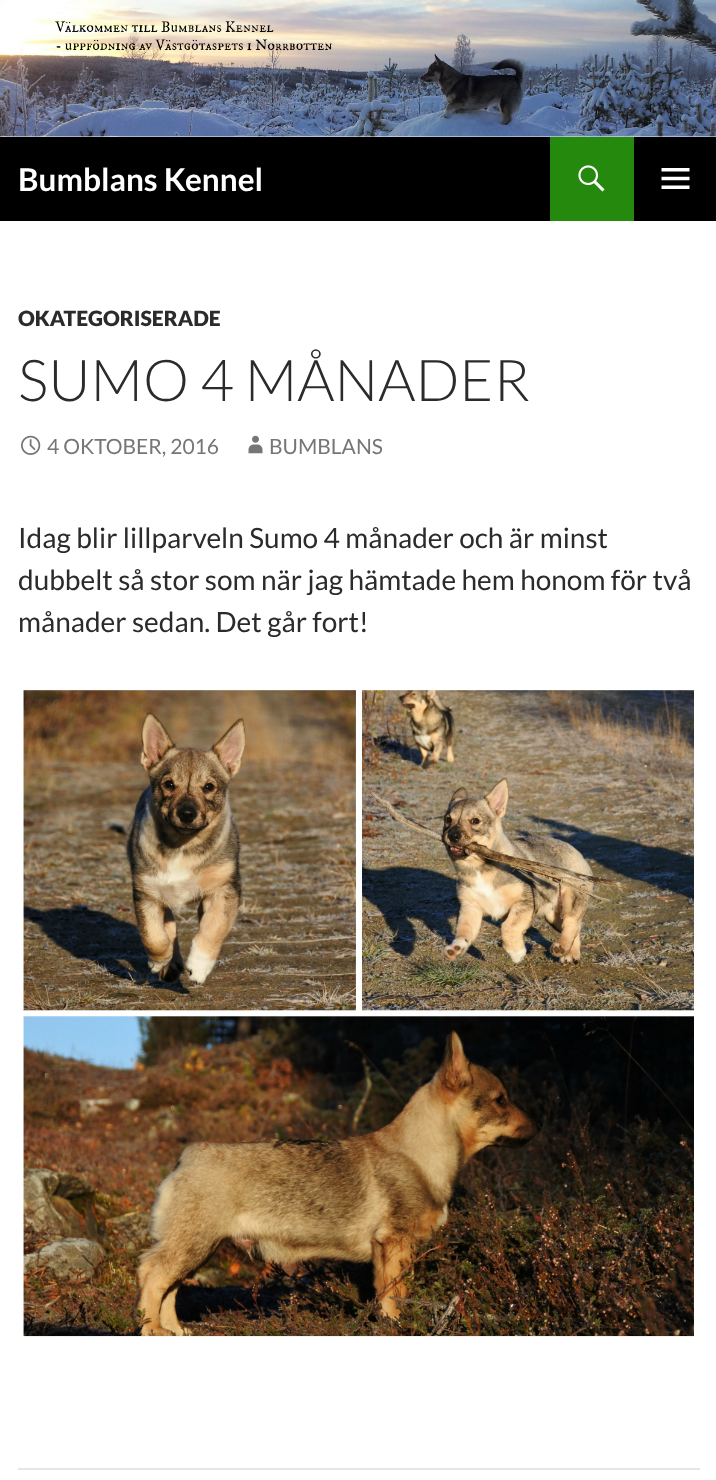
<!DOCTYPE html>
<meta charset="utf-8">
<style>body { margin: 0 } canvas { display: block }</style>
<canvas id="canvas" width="716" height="1480"></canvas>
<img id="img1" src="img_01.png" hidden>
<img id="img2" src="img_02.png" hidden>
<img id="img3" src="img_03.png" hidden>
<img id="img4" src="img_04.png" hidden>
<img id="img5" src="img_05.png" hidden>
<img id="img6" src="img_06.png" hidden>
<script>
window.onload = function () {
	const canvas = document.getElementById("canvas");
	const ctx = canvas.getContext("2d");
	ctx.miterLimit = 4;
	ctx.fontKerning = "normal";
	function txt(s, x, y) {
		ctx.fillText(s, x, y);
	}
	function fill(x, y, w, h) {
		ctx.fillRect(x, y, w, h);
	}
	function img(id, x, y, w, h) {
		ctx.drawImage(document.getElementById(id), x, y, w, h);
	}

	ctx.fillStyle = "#FFFFFF";
	fill(0, 0, 716, 1480);
	img("img1", 0, 0, 716, 137);
	ctx.fillStyle = "#000000";
	fill(0, 137, 716, 84);
	ctx.fillStyle = "#24890D";
	fill(550, 137, 84, 84);
	img("img2", 578, 165, 27, 27);
	img("img3", 661, 168, 29, 21);
	img("img4", 21, 435, 20, 20);
	img("img5", 248, 435, 15, 19);
	img("img6", 22, 689, 674, 648);
	ctx.fillStyle = "#E6E6E6";
	fill(18, 1468, 682, 2);
	ctx.font = "bold 31.5px Lato";
	ctx.fillStyle = "#FFFFFF";
	txt("Bumblans Kennel", 18, 191);
	ctx.font = "900 21px Lato";
	ctx.fillStyle = "#2B2B2B";
	txt("OKATEGORISERADE", 18, 326);
	ctx.font = "300 57.75px Lato";
	txt("SUMO 4 MÅNADER", 18, 401);
	ctx.font = "21px Lato";
	ctx.fillStyle = "#767676";
	txt("4 OKTOBER, 2016", 47, 454);
	txt("BUMBLANS", 269, 454);
	ctx.font = "28px Lato";
	ctx.fillStyle = "#2B2B2B";
	txt("Idag blir lillparveln Sumo 4 månader och är minst", 18, 548);
	txt("dubbelt så stor som när jag hämtade hem honom för två", 18, 590);
	txt("månader sedan. Det går fort!", 18, 632);
};
</script>
